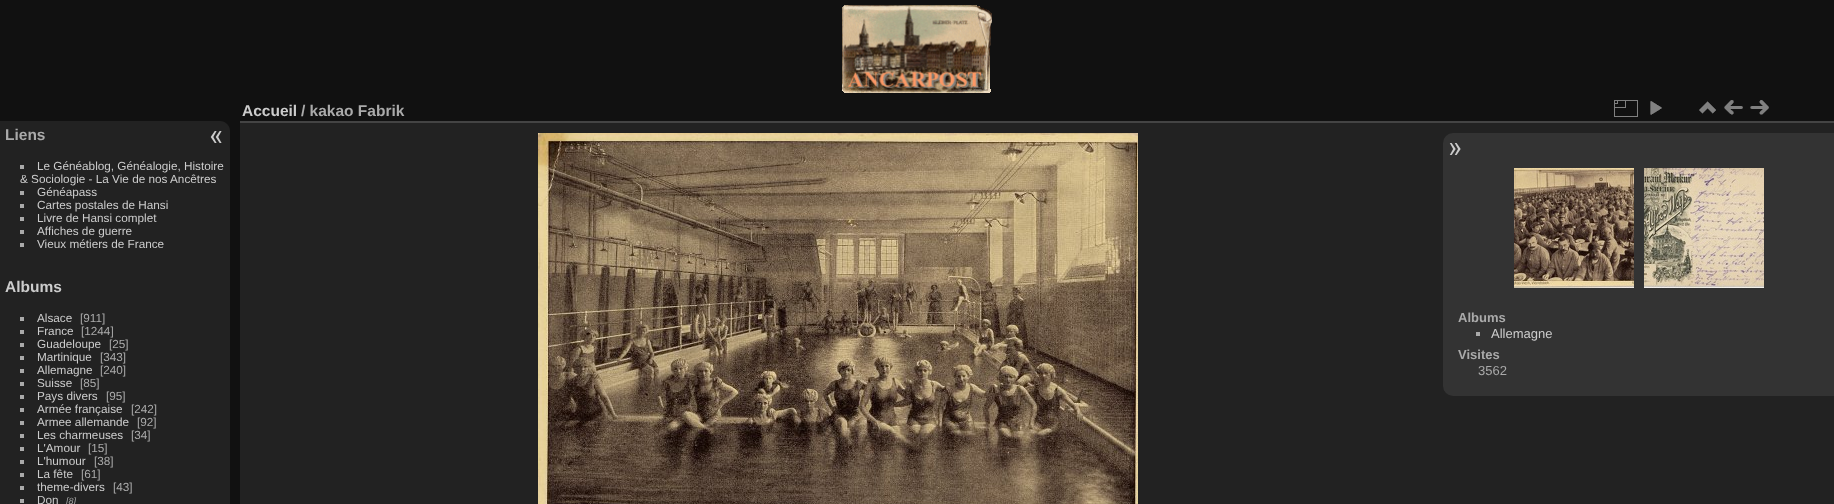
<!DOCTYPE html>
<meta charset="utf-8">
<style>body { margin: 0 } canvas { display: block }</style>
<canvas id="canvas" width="1834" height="504"></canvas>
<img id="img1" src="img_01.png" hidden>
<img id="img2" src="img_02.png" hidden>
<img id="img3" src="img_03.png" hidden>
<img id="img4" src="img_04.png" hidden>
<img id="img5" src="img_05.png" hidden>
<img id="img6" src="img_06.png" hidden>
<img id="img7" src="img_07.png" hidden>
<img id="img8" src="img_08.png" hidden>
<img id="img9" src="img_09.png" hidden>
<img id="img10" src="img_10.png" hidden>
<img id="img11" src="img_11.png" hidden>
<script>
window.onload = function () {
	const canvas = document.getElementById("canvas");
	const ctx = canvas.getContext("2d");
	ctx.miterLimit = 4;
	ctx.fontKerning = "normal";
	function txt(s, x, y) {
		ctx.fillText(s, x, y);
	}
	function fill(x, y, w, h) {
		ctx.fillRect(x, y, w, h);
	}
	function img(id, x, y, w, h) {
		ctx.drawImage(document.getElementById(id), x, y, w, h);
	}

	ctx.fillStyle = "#111111";
	fill(0, 0, 1834, 504);
	img("img1", 842, 5, 150, 88);
	ctx.fillStyle = "#222222";
	ctx.beginPath();
	ctx.moveTo(0, 121);
	ctx.lineTo(220, 121);
	ctx.bezierCurveTo(225.5, 121, 230, 125.5, 230, 131);
	ctx.lineTo(230, 504);
	ctx.bezierCurveTo(230, 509.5, 225.5, 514, 220, 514);
	ctx.lineTo(0, 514);
	ctx.closePath();
	ctx.fill();
	ctx.fillStyle = "#AAAAAA";
	fill(20, 165, 4, 4);
	fill(20, 191, 4, 4);
	fill(20, 204, 4, 4);
	fill(20, 217, 4, 4);
	fill(20, 230, 4, 4);
	fill(20, 243, 4, 4);
	fill(20, 317, 4, 4);
	fill(20, 330, 4, 4);
	fill(20, 343, 4, 4);
	fill(20, 356, 4, 4);
	fill(20, 369, 4, 4);
	fill(20, 382, 4, 4);
	fill(20, 395, 4, 4);
	fill(20, 408, 4, 4);
	fill(20, 421, 4, 4);
	fill(20, 434, 4, 4);
	fill(20, 447, 4, 4);
	fill(20, 460, 4, 4);
	fill(20, 473, 4, 4);
	fill(20, 486, 4, 4);
	fill(20, 499, 4, 4);
	ctx.fillStyle = "#222222";
	fill(240, 123, 1594, 381);
	ctx.fillStyle = "#444444";
	fill(240, 121, 1594, 2);
	img("img2", 1614, 100, 24, 17);
	img("img3", 1650, 101, 12, 14);
	img("img4", 1699, 101, 17, 13);
	img("img5", 1724, 100, 19, 15);
	img("img6", 1750, 100, 19, 15);
	img("img7", 538, 133, 600, 371);
	ctx.fillStyle = "#333333";
	ctx.beginPath();
	ctx.roundRect(1443, 133, 391, 263, [10, 0, 0, 10]);
	ctx.fill();
	img("img8", 1449, 143, 12, 12);
	img("img9", 1514, 168, 120, 120);
	img("img10", 1644, 168, 120, 120);
	ctx.fillStyle = "#AAAAAA";
	fill(1476, 332, 4, 4);
	img("img11", 210, 131, 12, 12);
	ctx.font = "bold 15.5px Liberation Sans";
	txt("Liens", 5, 140);
	ctx.font = "11.75px Liberation Sans";
	ctx.fillStyle = "#CCCCCC";
	txt("Le Généablog, Généalogie, Histoire", 37, 170);
	txt("& Sociologie - La Vie de nos Ancêtres", 20, 183);
	txt("Généapass", 37, 196);
	txt("Cartes postales de Hansi", 37, 209);
	txt("Livre de Hansi complet", 37, 222);
	txt("Affiches de guerre", 37, 235);
	txt("Vieux métiers de France", 37, 248);
	ctx.font = "bold 15.5px Liberation Sans";
	txt("Albums", 5, 292);
	ctx.font = "11.75px Liberation Sans";
	txt("Alsace", 37, 322);
	ctx.fillStyle = "#AAAAAA";
	txt("[911]", 80, 322);
	ctx.fillStyle = "#CCCCCC";
	txt("France", 37, 335);
	ctx.fillStyle = "#AAAAAA";
	txt("[1244]", 81, 335);
	ctx.fillStyle = "#CCCCCC";
	txt("Guadeloupe", 37, 348);
	ctx.fillStyle = "#AAAAAA";
	txt("[25]", 109, 348);
	ctx.fillStyle = "#CCCCCC";
	txt("Martinique", 37, 361);
	ctx.fillStyle = "#AAAAAA";
	txt("[343]", 100, 361);
	ctx.fillStyle = "#CCCCCC";
	txt("Allemagne", 37, 374);
	ctx.fillStyle = "#AAAAAA";
	txt("[240]", 100, 374);
	ctx.fillStyle = "#CCCCCC";
	txt("Suisse", 37, 387);
	ctx.fillStyle = "#AAAAAA";
	txt("[85]", 80, 387);
	ctx.fillStyle = "#CCCCCC";
	txt("Pays divers", 37, 400);
	ctx.fillStyle = "#AAAAAA";
	txt("[95]", 106, 400);
	ctx.fillStyle = "#CCCCCC";
	txt("Armée française", 37, 413);
	ctx.fillStyle = "#AAAAAA";
	txt("[242]", 131, 413);
	ctx.fillStyle = "#CCCCCC";
	txt("Armee allemande", 37, 426);
	ctx.fillStyle = "#AAAAAA";
	txt("[92]", 137, 426);
	ctx.fillStyle = "#CCCCCC";
	txt("Les charmeuses", 37, 439);
	ctx.fillStyle = "#AAAAAA";
	txt("[34]", 131, 439);
	ctx.fillStyle = "#CCCCCC";
	txt("L'Amour", 37, 452);
	ctx.fillStyle = "#AAAAAA";
	txt("[15]", 88, 452);
	ctx.fillStyle = "#CCCCCC";
	txt("L'humour", 37, 465);
	ctx.fillStyle = "#AAAAAA";
	txt("[38]", 94, 465);
	ctx.fillStyle = "#CCCCCC";
	txt("La fête", 37, 478);
	ctx.fillStyle = "#AAAAAA";
	txt("[61]", 81, 478);
	ctx.fillStyle = "#CCCCCC";
	txt("theme-divers", 37, 491);
	ctx.fillStyle = "#AAAAAA";
	txt("[43]", 113, 491);
	ctx.fillStyle = "#CCCCCC";
	txt("Don", 37, 504);
	ctx.font = "italic 9px Liberation Sans";
	ctx.fillStyle = "#AAAAAA";
	txt("[8]", 66, 504);
	ctx.font = "bold 15.5px Liberation Sans";
	ctx.fillStyle = "#CCCCCC";
	txt("Accueil", 242, 116);
	ctx.fillStyle = "#AAAAAA";
	txt("/ kakao Fabrik", 301, 116);
	ctx.font = "bold 13px Liberation Sans";
	txt("Albums", 1458, 322);
	ctx.font = "13px Liberation Sans";
	ctx.fillStyle = "#CCCCCC";
	txt("Allemagne", 1491, 338);
	ctx.font = "bold 13px Liberation Sans";
	ctx.fillStyle = "#AAAAAA";
	txt("Visites", 1458, 359);
	ctx.font = "13px Liberation Sans";
	txt("3562", 1478, 375);
};
</script>
